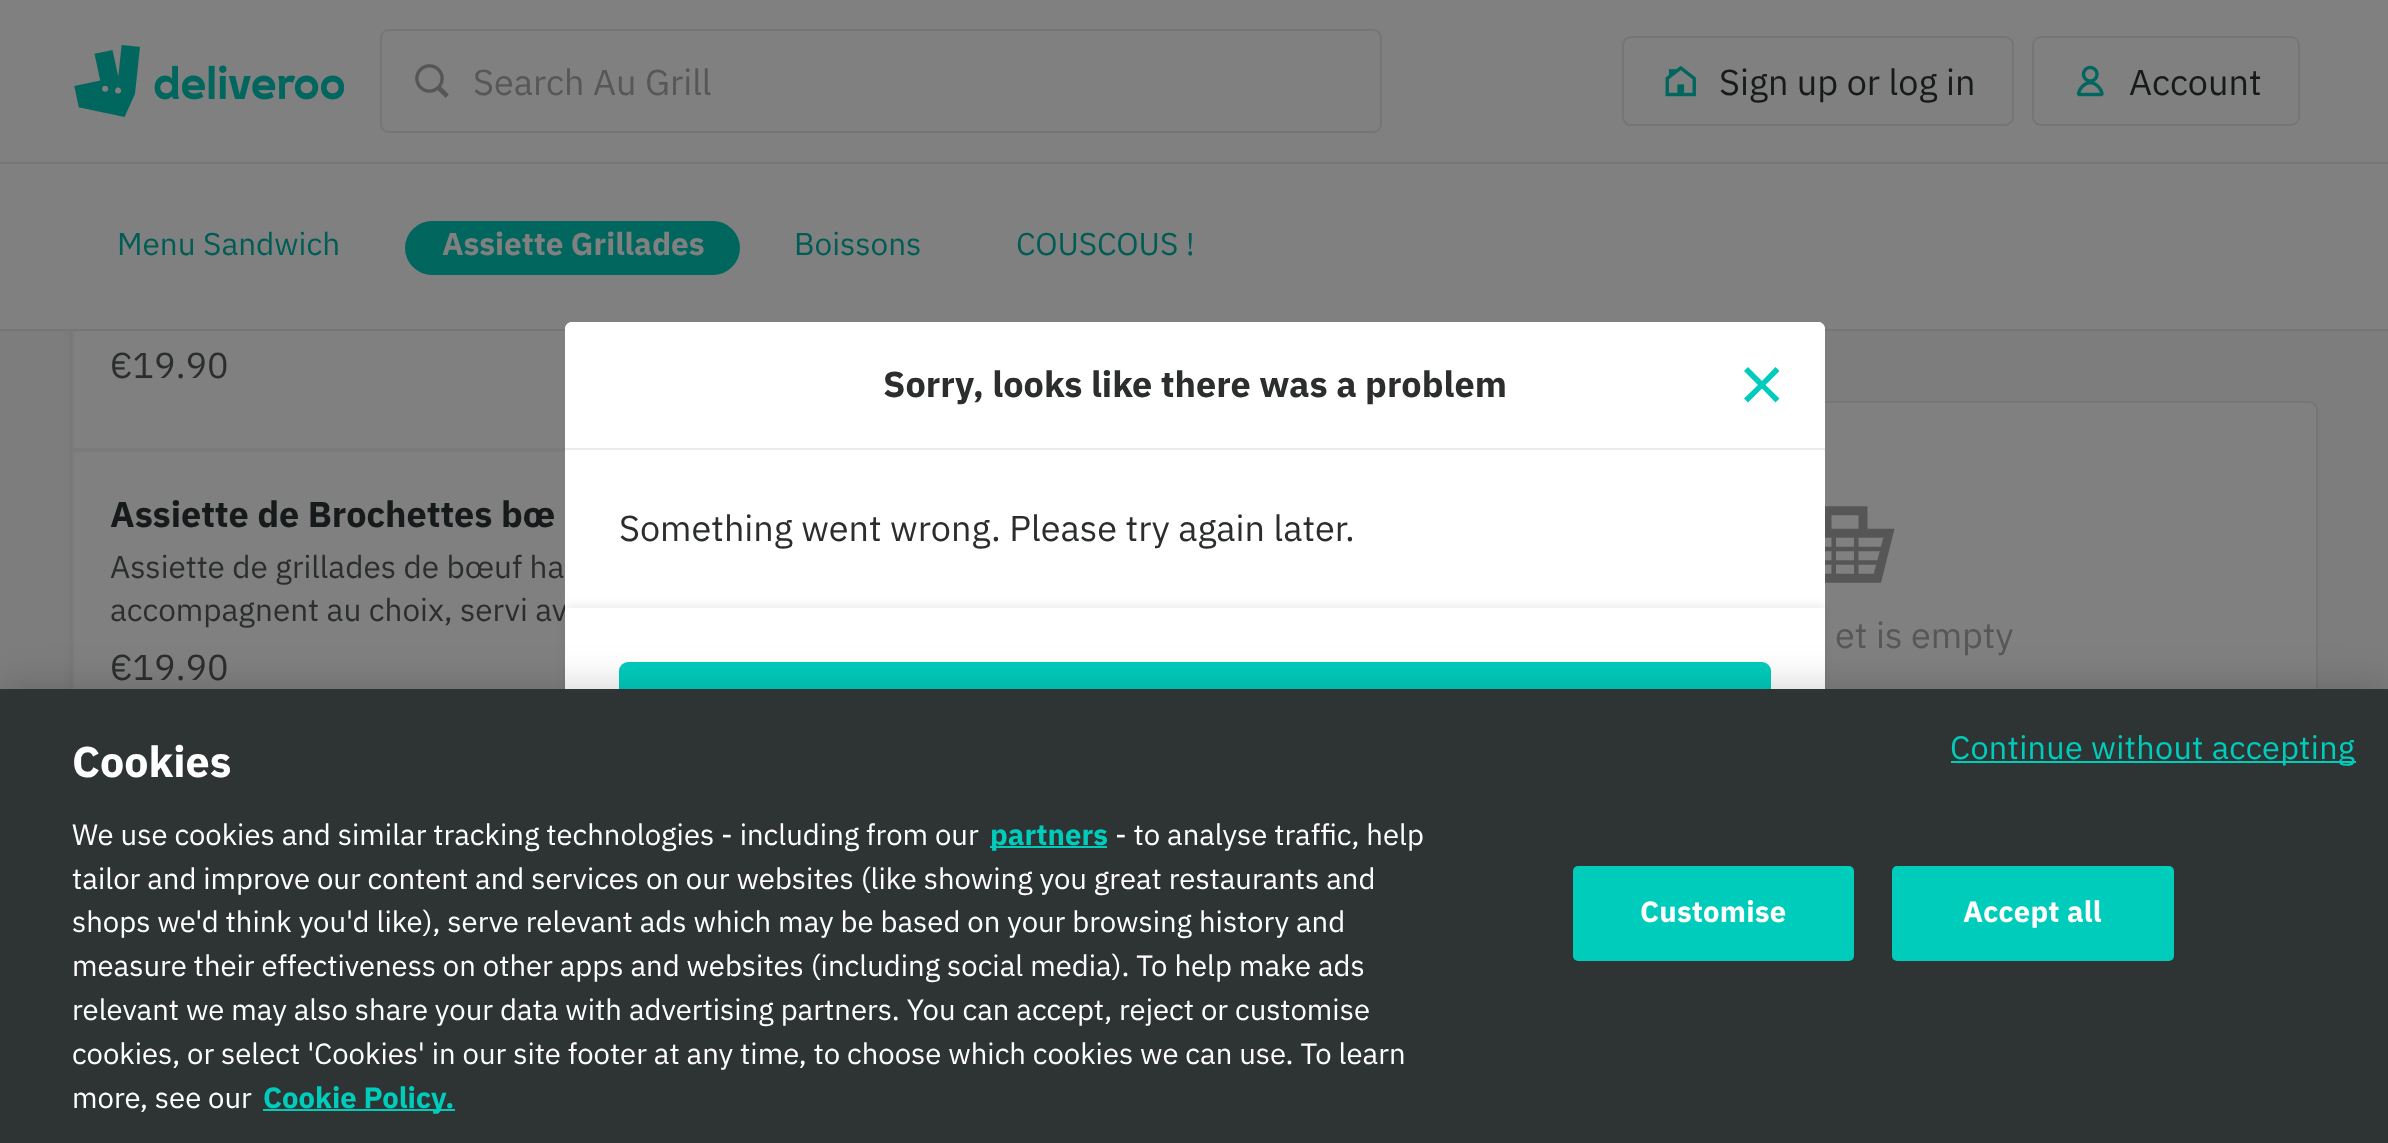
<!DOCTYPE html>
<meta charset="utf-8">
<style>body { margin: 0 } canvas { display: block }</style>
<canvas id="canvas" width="2388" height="1143"></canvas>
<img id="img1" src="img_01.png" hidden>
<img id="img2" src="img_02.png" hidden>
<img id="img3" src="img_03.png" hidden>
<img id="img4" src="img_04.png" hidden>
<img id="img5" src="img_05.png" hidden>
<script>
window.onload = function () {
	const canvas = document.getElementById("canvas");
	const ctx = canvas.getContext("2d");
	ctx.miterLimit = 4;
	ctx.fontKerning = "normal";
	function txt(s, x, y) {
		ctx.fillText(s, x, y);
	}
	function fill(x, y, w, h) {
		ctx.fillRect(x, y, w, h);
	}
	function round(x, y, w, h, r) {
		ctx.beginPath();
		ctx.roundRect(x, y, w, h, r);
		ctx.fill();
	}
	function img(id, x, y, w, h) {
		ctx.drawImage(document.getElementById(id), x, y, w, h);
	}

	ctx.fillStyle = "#7D7D7D";
	fill(0, 0, 2388, 1143);
	ctx.fillStyle = "rgba(0, 0, 0, 0.08)";
	ctx.filter = "blur(4.5px)";
	ctx.beginPath();
	ctx.roundRect(72, -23, 1247, 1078, 9);
	ctx.fill();
	ctx.filter = "none";
	ctx.fillStyle = "#808080";
	fill(74, 331, 491, 117);
	ctx.strokeStyle = "#7B7B7B";
	ctx.lineWidth = 2;
	ctx.strokeRect(73, 150, 1245, 299);
	fill(0, 0, 2388, 162);
	ctx.fillStyle = "#767676";
	fill(0, 162, 2388, 2);
	img("img1", 74, 45, 270, 72);
	ctx.beginPath();
	ctx.roundRect(381, 30, 1000, 102, 8);
	ctx.strokeStyle = "#747676";
	ctx.stroke();
	img("img2", 415, 64, 34, 34);
	ctx.beginPath();
	ctx.roundRect(1623, 37, 390, 88, 8);
	ctx.stroke();
	img("img3", 1665, 65, 31, 32);
	ctx.beginPath();
	ctx.roundRect(2033, 37, 266, 88, 8);
	ctx.stroke();
	img("img4", 2076, 65, 28, 32);
	ctx.fillStyle = "#808080";
	fill(0, 164, 2388, 165);
	ctx.fillStyle = "#767676";
	fill(0, 329, 2388, 2);
	ctx.fillStyle = "#00665E";
	round(405, 221, 335, 54, 27);
	ctx.fillStyle = "#808080";
	fill(74, 452, 491, 237);
	ctx.strokeStyle = "#7B7B7B";
	ctx.strokeRect(73, 451, 1245, 300);
	ctx.beginPath();
	ctx.roundRect(1374, 402, 943, 547, [8, 8, 0, 0]);
	ctx.fill();
	ctx.strokeStyle = "#767676";
	ctx.stroke();
	img("img5", 1825, 506, 70, 77);
	ctx.font = "36px IBM Plex Sans";
	ctx.fillStyle = "#565757";
	txt("Search Au Grill", 473, 95);
	ctx.fillStyle = "#171A1A";
	txt("Sign up or log in", 1719, 95);
	txt("Account", 2129, 95);
	ctx.font = "31.5px IBM Plex Sans";
	ctx.fillStyle = "#005C55";
	txt("Menu Sandwich", 117, 255);
	ctx.font = "bold 31.5px IBM Plex Sans";
	ctx.fillStyle = "#808080";
	txt("Assiette Grillades", 442, 255);
	ctx.font = "31.5px IBM Plex Sans";
	ctx.fillStyle = "#005C55";
	txt("Boissons", 794, 255);
	txt("COUSCOUS !", 1016, 255);
	ctx.font = "36px IBM Plex Sans";
	ctx.fillStyle = "#2C2E2E";
	txt("€19.90", 110, 378);
	ctx.font = "bold 36px IBM Plex Sans";
	ctx.fillStyle = "#171A1A";
	txt("Assiette de Brochettes bœ", 110, 527);
	ctx.font = "31.5px IBM Plex Sans";
	ctx.fillStyle = "#2C2E2E";
	txt("Assiette de grillades de bœuf ha", 110, 578);
	txt("accompagnent au choix, servi av", 110, 621);
	ctx.font = "36px IBM Plex Sans";
	txt("€19.90", 110, 680);
	ctx.fillStyle = "#565757";
	txt("et is empty", 1835, 648);
	ctx.fillStyle = "#FFFFFF";
	round(565, 322, 1260, 502, 7);
	ctx.beginPath();
	ctx.roundRect(565, 322, 1260, 128, [7, 7, 0, 0]);
	ctx.fill();
	ctx.fillStyle = "#EBEBEB";
	fill(565, 448, 1260, 2);
	ctx.font = "bold 36px IBM Plex Sans";
	ctx.fillStyle = "#2C2E2E";
	txt("Sorry, looks like there was a problem", 883, 397);
	ctx.fillStyle = "#00CCBC";
	ctx.beginPath();
	ctx.moveTo(1762, 381);
	ctx.lineTo(1748, 367);
	ctx.lineTo(1744, 371);
	ctx.lineTo(1758, 385);
	ctx.lineTo(1744, 398.5);
	ctx.lineTo(1748, 402.5);
	ctx.lineTo(1762, 388.5);
	ctx.lineTo(1775.5, 402.5);
	ctx.lineTo(1779.5, 398.5);
	ctx.lineTo(1765.5, 385);
	ctx.lineTo(1779.5, 371);
	ctx.lineTo(1775.5, 367);
	ctx.closePath();
	ctx.fill();
	ctx.font = "36px IBM Plex Sans";
	ctx.fillStyle = "#2C2E2E";
	txt("Something went wrong. Please try again later.", 619, 541);
	ctx.fillStyle = "rgba(0, 0, 0, 0.08)";
	ctx.filter = "blur(4.5px)";
	ctx.beginPath();
	ctx.roundRect(565, 605, 1260, 216, 7);
	ctx.fill();
	ctx.filter = "none";
	ctx.fillStyle = "#FFFFFF";
	fill(565, 608, 1260, 81);
	ctx.fillStyle = "#00CCBC";
	round(619, 662, 1152, 108, 9);
	ctx.fillStyle = "rgba(0, 0, 0, 0.2)";
	ctx.filter = "blur(20px)";
	ctx.beginPath();
	ctx.rect(0, 689, 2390, 454);
	ctx.fill();
	ctx.filter = "none";
	ctx.fillStyle = "#2E3333";
	fill(0, 689, 2388, 454);
	ctx.font = "bold 43px IBM Plex Sans";
	ctx.fillStyle = "#FFFFFF";
	txt("Cookies", 72, 777);
	ctx.font = "29.25px IBM Plex Sans";
	txt("We use cookies and similar tracking technologies - including from our", 72, 845);
	ctx.fillStyle = "#00CCBC";
	fill(990, 846, 117, 2);
	ctx.font = "bold 29.25px IBM Plex Sans";
	txt("partners", 990, 845);
	ctx.font = "29.25px IBM Plex Sans";
	ctx.fillStyle = "#FFFFFF";
	txt("- to analyse traffic, help", 1115, 845);
	txt("tailor and improve our content and services on our websites (like showing you great restaurants and", 72, 889);
	txt("shops we'd think you'd like), serve relevant ads which may be based on your browsing history and", 72, 932);
	txt("measure their effectiveness on other apps and websites (including social media). To help make ads", 72, 976);
	txt("relevant we may also share your data with advertising partners. You can accept, reject or customise", 72, 1020);
	txt("cookies, or select 'Cookies' in our site footer at any time, to choose which cookies we can use. To learn", 72, 1064);
	txt("more, see our", 72, 1108);
	ctx.fillStyle = "#00CCBC";
	fill(263, 1109, 192, 2);
	ctx.font = "bold 29.25px IBM Plex Sans";
	txt("Cookie Policy.", 263, 1108);
	ctx.beginPath();
	ctx.roundRect(1574, 867, 279, 93, 4);
	ctx.fill();
	ctx.strokeStyle = "#00CCBC";
	ctx.stroke();
	ctx.letterSpacing = "0.25px";
	ctx.fillStyle = "#FFFFFF";
	txt("Customise", 1640, 922);
	ctx.fillStyle = "#00CCBC";
	ctx.beginPath();
	ctx.roundRect(1893, 867, 280, 93, 4);
	ctx.fill();
	ctx.stroke();
	ctx.fillStyle = "#FFFFFF";
	txt("Accept all", 1963, 922);
	ctx.fillStyle = "#00CCBC";
	fill(1951, 761, 405, 2);
	ctx.letterSpacing = "0.3px";
	ctx.font = "32.4px IBM Plex Sans";
	txt("Continue without accepting", 1950, 759);
};
</script>
